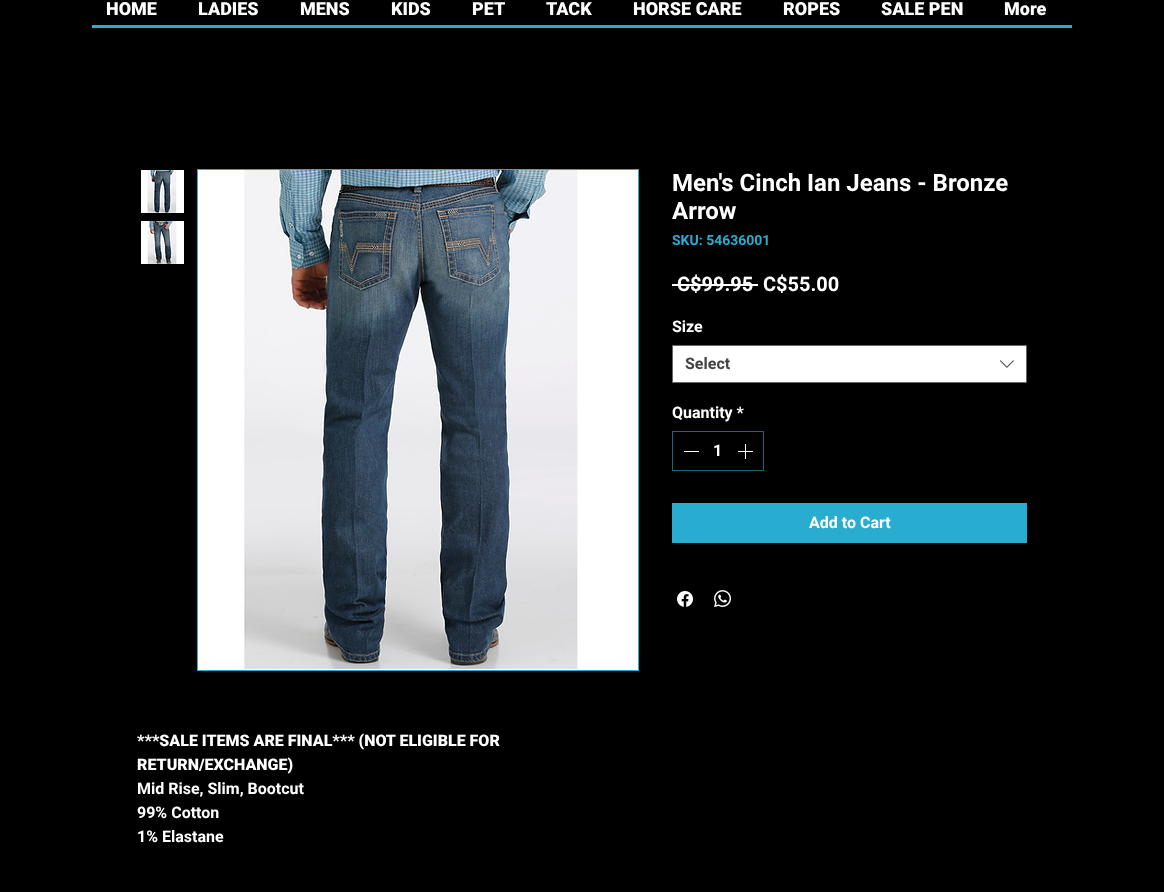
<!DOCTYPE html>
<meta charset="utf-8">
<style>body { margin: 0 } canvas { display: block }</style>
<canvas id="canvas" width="1164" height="892"></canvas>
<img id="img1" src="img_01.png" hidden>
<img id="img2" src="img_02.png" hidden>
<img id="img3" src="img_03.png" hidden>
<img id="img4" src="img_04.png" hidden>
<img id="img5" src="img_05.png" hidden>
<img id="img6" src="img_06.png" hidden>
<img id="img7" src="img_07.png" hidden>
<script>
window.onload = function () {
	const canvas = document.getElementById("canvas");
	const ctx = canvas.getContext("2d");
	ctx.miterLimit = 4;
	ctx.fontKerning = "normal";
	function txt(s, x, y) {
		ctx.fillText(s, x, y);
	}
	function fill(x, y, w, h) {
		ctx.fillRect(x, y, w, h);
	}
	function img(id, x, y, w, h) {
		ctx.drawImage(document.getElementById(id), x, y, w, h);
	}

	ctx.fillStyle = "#000000";
	fill(0, 0, 1164, 892);
	ctx.fillStyle = "#28ADD1";
	fill(92, 25, 980, 3);
	ctx.fillStyle = "#FFFFFF";
	fill(672, 284, 86, 2);
	ctx.beginPath();
	ctx.rect(672.5, 345.5, 354, 37);
	ctx.fill();
	ctx.strokeStyle = "#666666";
	ctx.stroke();
	img("img1", 999, 360, 15, 8);
	ctx.strokeStyle = "#18687D";
	ctx.strokeRect(672.5, 431.5, 91, 39);
	fill(684, 451, 15, 1);
	img("img2", 738, 444, 15, 15);
	ctx.fillStyle = "#28ADD1";
	fill(672, 503, 355, 40);
	img("img3", 677, 591, 16, 16);
	img("img4", 714, 590, 17, 17);
	img("img5", 141, 170, 43, 43);
	img("img6", 141, 221, 43, 43);
	ctx.strokeStyle = "#28ADD1";
	ctx.strokeRect(197.5, 169.5, 441, 501);
	img("img7", 198, 170, 440, 500);
	ctx.font = "900 18px Roboto";
	ctx.fillStyle = "#FFFFFF";
	txt("HOME", 106, 15);
	txt("LADIES", 198, 15);
	txt("MENS", 300, 15);
	txt("KIDS", 391, 15);
	txt("PET", 472, 15);
	txt("TACK", 546, 15);
	txt("HORSE CARE", 633, 15);
	txt("ROPES", 783, 15);
	txt("SALE PEN", 881, 15);
	txt("More", 1004, 15);
	ctx.font = "bold 24px Roboto";
	txt("Men's Cinch Ian Jeans - Bronze", 672, 191);
	txt("Arrow", 672, 219);
	ctx.font = "bold 14px Roboto";
	ctx.fillStyle = "#28ADD1";
	txt("SKU: 54636001", 672, 245);
	ctx.font = "bold 20px Roboto";
	ctx.fillStyle = "#FFFFFF";
	txt("C$99.95", 677, 291);
	txt("C$55.00", 763, 291);
	ctx.font = "bold 16px Roboto";
	txt("Size", 672, 332);
	ctx.fillStyle = "#444444";
	txt("Select", 685, 369);
	ctx.fillStyle = "#FFFFFF";
	txt("Quantity *", 672, 418);
	txt("1", 713, 456);
	txt("Add to Cart", 809, 528);
	ctx.font = "900 16px Roboto";
	txt("***SALE ITEMS ARE FINAL*** (NOT ELIGIBLE FOR", 137, 746);
	txt("RETURN/EXCHANGE)", 137, 770);
	ctx.font = "bold 16px Roboto";
	txt("Mid Rise, Slim, Bootcut", 137, 794);
	txt("99% Cotton", 137, 818);
	txt("1% Elastane", 137, 842);
};
</script>
